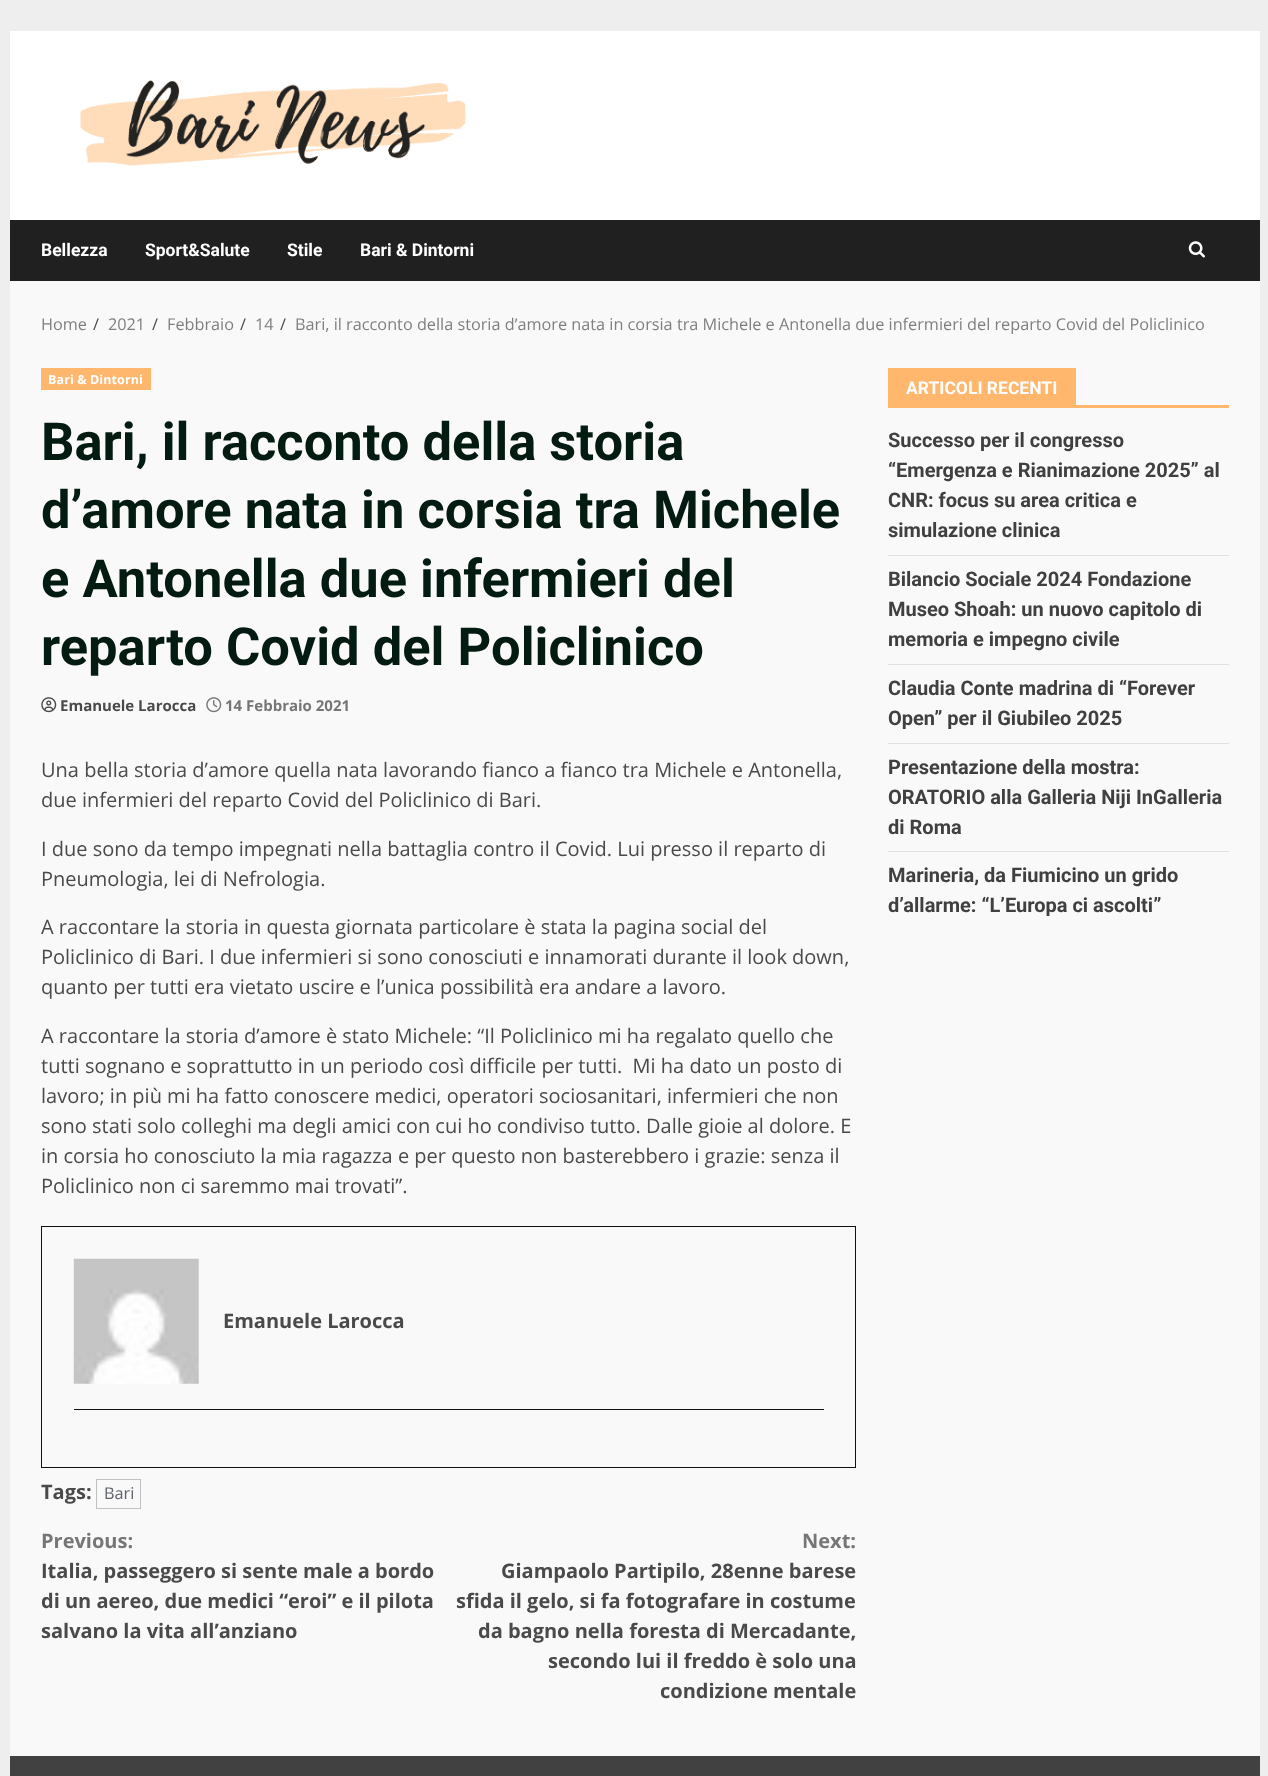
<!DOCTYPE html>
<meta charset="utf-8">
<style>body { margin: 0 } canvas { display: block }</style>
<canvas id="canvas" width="1268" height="1776"></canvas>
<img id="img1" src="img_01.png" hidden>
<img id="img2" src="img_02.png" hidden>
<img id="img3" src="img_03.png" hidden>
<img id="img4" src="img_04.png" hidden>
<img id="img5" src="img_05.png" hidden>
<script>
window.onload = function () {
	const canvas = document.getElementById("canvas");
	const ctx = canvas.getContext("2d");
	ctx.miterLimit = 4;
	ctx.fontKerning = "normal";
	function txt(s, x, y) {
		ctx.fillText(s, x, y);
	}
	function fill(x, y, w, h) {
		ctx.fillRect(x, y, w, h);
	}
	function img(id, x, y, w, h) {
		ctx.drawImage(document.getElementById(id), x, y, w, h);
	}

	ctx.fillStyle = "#EEEEEE";
	fill(0, 0, 1268, 1776);
	ctx.fillStyle = "#F9F9F9";
	fill(10, 281, 1250, 1475);
	ctx.fillStyle = "#FFFFFF";
	fill(10, 31, 1250, 189);
	img("img1", 80, 80, 386, 86);
	ctx.fillStyle = "#202020";
	fill(10, 220, 1250, 61);
	img("img2", 1188, 241, 17, 17);
	ctx.fillStyle = "#FFB66D";
	fill(41, 368, 110, 22);
	img("img3", 41, 697, 16, 16);
	img("img4", 206, 697, 16, 16);
	ctx.strokeStyle = "#111111";
	ctx.strokeRect(41.5, 1226.5, 814, 241);
	img("img5", 73, 1258, 126, 126);
	ctx.fillStyle = "#111111";
	fill(74, 1409, 750, 1);
	ctx.strokeStyle = "#BFC1C3";
	ctx.strokeRect(96.5, 1479.5, 44, 29);
	ctx.fillStyle = "#FFB66D";
	fill(888, 405, 341, 3);
	fill(888, 368, 188, 37);
	ctx.fillStyle = "#E0E0E0";
	fill(888, 555, 341, 1);
	fill(888, 664, 341, 1);
	fill(888, 743, 341, 1);
	fill(888, 851, 341, 1);
	ctx.fillStyle = "#414141";
	fill(10, 1756, 1250, 20);
	ctx.font = "bold 17.5px Roboto";
	ctx.fillStyle = "#FFFFFF";
	txt("Bellezza", 41, 256);
	txt("Sport&Salute", 145, 256);
	txt("Stile", 287, 256);
	txt("Bari & Dintorni", 360, 256);
	ctx.font = "16.25px Open Sans";
	ctx.fillStyle = "#7F7F7F";
	txt("Home", 41, 330);
	ctx.fillStyle = "#4A4A4A";
	txt("/", 93, 330);
	ctx.fillStyle = "#7F7F7F";
	txt("2021", 108, 330);
	ctx.fillStyle = "#4A4A4A";
	txt("/", 152, 330);
	ctx.fillStyle = "#7F7F7F";
	txt("Febbraio", 167, 330);
	ctx.fillStyle = "#4A4A4A";
	txt("/", 240, 330);
	ctx.fillStyle = "#7F7F7F";
	txt("14", 255, 330);
	ctx.fillStyle = "#4A4A4A";
	txt("/", 280, 330);
	ctx.fillStyle = "#7F7F7F";
	txt("Bari, il racconto della storia d’amore nata in corsia tra Michele e Antonella due infermieri del reparto Covid del Policlinico", 295, 330);
	ctx.letterSpacing = "0.1px";
	ctx.font = "bold 12.5px Open Sans";
	ctx.fillStyle = "#FFFFFF";
	txt("Bari & Dintorni", 48, 384);
	ctx.letterSpacing = "0px";
	ctx.font = "bold 52.5px Roboto";
	ctx.fillStyle = "#031B11";
	txt("Bari, il racconto della storia", 41, 460);
	txt("d’amore nata in corsia tra Michele", 41, 528);
	txt("e Antonella due infermieri del", 41, 597);
	txt("reparto Covid del Policlinico", 41, 665);
	ctx.font = "bold 15px Open Sans";
	ctx.fillStyle = "#4A4A4A";
	txt("Emanuele Larocca", 60, 711);
	ctx.fillStyle = "#767676";
	txt("14 Febbraio 2021", 225, 711);
	ctx.font = "20px Open Sans";
	ctx.fillStyle = "#4A4A4A";
	txt("Una bella storia d’amore quella nata lavorando fianco a fianco tra Michele e Antonella,", 41, 777);
	txt("due infermieri del reparto Covid del Policlinico di Bari.", 41, 807);
	txt("I due sono da tempo impegnati nella battaglia contro il Covid. Lui presso il reparto di", 41, 856);
	txt("Pneumologia, lei di Nefrologia.", 41, 886);
	txt("A raccontare la storia in questa giornata particolare è stata la pagina social del", 41, 934);
	txt("Policlinico di Bari. I due infermieri si sono conosciuti e innamorati durante il look down,", 41, 964);
	txt("quanto per tutti era vietato uscire e l’unica possibilità era andare a lavoro.", 41, 994);
	txt("A raccontare la storia d’amore è stato Michele: “Il Policlinico mi ha regalato quello che", 41, 1043);
	txt("tutti sognano e soprattutto in un periodo così difficile per tutti.  Mi ha dato un posto di", 41, 1073);
	txt("lavoro; in più mi ha fatto conoscere medici, operatori sociosanitari, infermieri che non", 41, 1103);
	txt("sono stati solo colleghi ma degli amici con cui ho condiviso tutto. Dalle gioie al dolore. E", 41, 1133);
	txt("in corsia ho conosciuto la mia ragazza e per questo non basterebbero i grazie: senza il", 41, 1163);
	txt("Policlinico non ci saremmo mai trovati”.", 41, 1193);
	ctx.font = "bold 20px Open Sans";
	txt("Emanuele Larocca", 223, 1328);
	txt("Tags:", 41, 1499);
	ctx.font = "16.25px Open Sans";
	ctx.fillStyle = "#5F636A";
	txt("Bari", 104, 1499);
	ctx.font = "bold 20px Open Sans";
	ctx.fillStyle = "#767676";
	txt("Previous:", 41, 1548);
	ctx.fillStyle = "#4A4A4A";
	txt("Italia, passeggero si sente male a bordo", 41, 1578);
	txt("di un aereo, due medici “eroi” e il pilota", 41, 1608);
	txt("salvano la vita all’anziano", 41, 1638);
	ctx.fillStyle = "#767676";
	txt("Next:", 802, 1548);
	ctx.fillStyle = "#4A4A4A";
	txt("Giampaolo Partipilo, 28enne barese", 501, 1578);
	txt("sfida il gelo, si fa fotografare in costume", 456, 1608);
	txt("da bagno nella foresta di Mercadante,", 478, 1638);
	txt("secondo lui il freddo è solo una", 548, 1668);
	txt("condizione mentale", 660, 1698);
	ctx.font = "bold 17.5px Roboto";
	ctx.fillStyle = "#FFFFFF";
	txt("ARTICOLI RECENTI", 906, 394);
	ctx.font = "bold 20px Roboto";
	ctx.fillStyle = "#404040";
	txt("Successo per il congresso", 888, 447);
	txt("“Emergenza e Rianimazione 2025” al", 888, 477);
	txt("CNR: focus su area critica e", 888, 507);
	txt("simulazione clinica", 888, 537);
	txt("Bilancio Sociale 2024 Fondazione", 888, 586);
	txt("Museo Shoah: un nuovo capitolo di", 888, 616);
	txt("memoria e impegno civile", 888, 646);
	txt("Claudia Conte madrina di “Forever", 888, 695);
	txt("Open” per il Giubileo 2025", 888, 725);
	txt("Presentazione della mostra:", 888, 774);
	txt("ORATORIO alla Galleria Niji InGalleria", 888, 804);
	txt("di Roma", 888, 834);
	txt("Marineria, da Fiumicino un grido", 888, 882);
	txt("d’allarme: “L’Europa ci ascolti”", 888, 912);
};
</script>
